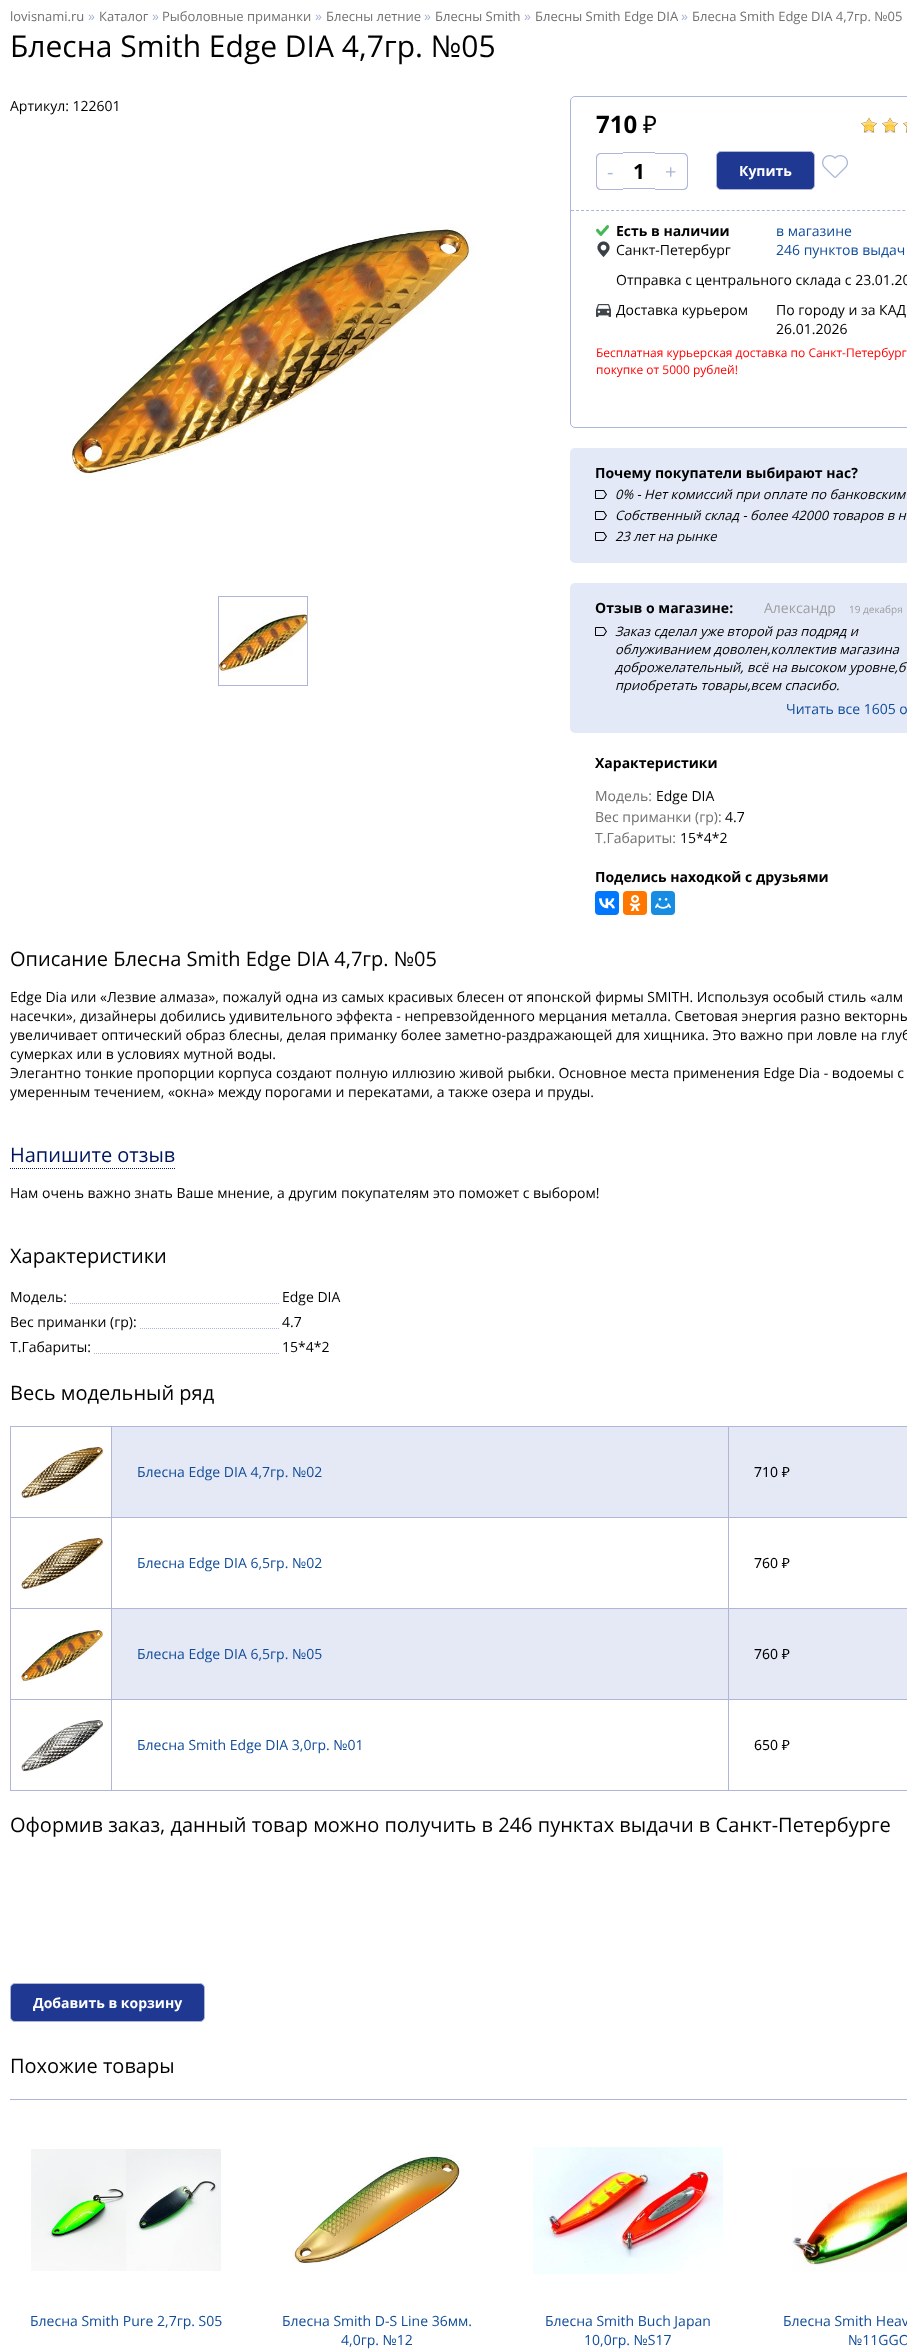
<!DOCTYPE html>
<meta charset="utf-8">
<style>body { margin: 0 } canvas { display: block }</style>
<canvas id="canvas" width="907" height="2352"></canvas>
<img id="img1" src="img_01.png" hidden>
<img id="img2" src="img_02.png" hidden>
<img id="img3" src="img_03.png" hidden>
<img id="img4" src="img_04.png" hidden>
<img id="img5" src="img_05.png" hidden>
<img id="img6" src="img_06.png" hidden>
<img id="img7" src="img_07.png" hidden>
<img id="img8" src="img_08.png" hidden>
<img id="img9" src="img_09.png" hidden>
<img id="img10" src="img_10.png" hidden>
<img id="img11" src="img_11.png" hidden>
<img id="img12" src="img_12.png" hidden>
<img id="img13" src="img_13.png" hidden>
<img id="img14" src="img_14.png" hidden>
<img id="img15" src="img_15.png" hidden>
<img id="img16" src="img_16.png" hidden>
<img id="img17" src="img_17.png" hidden>
<img id="img18" src="img_18.png" hidden>
<img id="img19" src="img_19.png" hidden>
<script>
window.onload = function () {
	const canvas = document.getElementById("canvas");
	const ctx = canvas.getContext("2d");
	ctx.miterLimit = 4;
	ctx.fontKerning = "normal";
	function txt(s, x, y) {
		ctx.fillText(s, x, y);
	}
	function fill(x, y, w, h) {
		ctx.fillRect(x, y, w, h);
	}
	function round(x, y, w, h, r) {
		ctx.beginPath();
		ctx.roundRect(x, y, w, h, r);
		ctx.fill();
	}
	function img(id, x, y, w, h) {
		ctx.drawImage(document.getElementById(id), x, y, w, h);
	}

	ctx.fillStyle = "#FFFFFF";
	fill(0, 0, 907, 2352);
	img("img1", 71, 227, 405, 247);
	ctx.strokeStyle = "#ADB6D8";
	ctx.strokeRect(218.5, 596.5, 89, 89);
	img("img2", 219, 610, 88, 63);
	ctx.beginPath();
	ctx.roundRect(570.5, 96.5, 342, 331, 4.5);
	ctx.strokeStyle = "#A9B7DE";
	ctx.stroke();
	img("img3", 861, 117, 16, 16);
	img("img3", 882, 117, 16, 16);
	img("img4", 903, 122, 4, 11);
	ctx.fillStyle = "#ADB6D8";
	ctx.beginPath();
	ctx.moveTo(601, 153);
	ctx.lineTo(623, 153);
	ctx.lineTo(623, 190);
	ctx.lineTo(601, 190);
	ctx.bezierCurveTo(598, 190, 596, 188, 596, 185);
	ctx.lineTo(596, 158);
	ctx.bezierCurveTo(596, 155, 598, 153, 601, 153);
	ctx.closePath();
	ctx.moveTo(601, 154);
	ctx.lineTo(623, 154);
	ctx.lineTo(623, 189);
	ctx.lineTo(601, 189);
	ctx.bezierCurveTo(599, 189, 597, 187, 597, 185);
	ctx.lineTo(597, 158);
	ctx.bezierCurveTo(597, 156, 599, 154, 601, 154);
	ctx.closePath();
	ctx.fill("evenodd");
	fill(623, 152, 32, 1);
	fill(623, 188, 32, 1);
	ctx.beginPath();
	ctx.moveTo(655, 153);
	ctx.lineTo(683, 153);
	ctx.bezierCurveTo(686, 153, 688, 155, 688, 158);
	ctx.lineTo(688, 185);
	ctx.bezierCurveTo(688, 188, 686, 190, 683, 190);
	ctx.lineTo(655, 190);
	ctx.closePath();
	ctx.moveTo(655, 154);
	ctx.lineTo(683, 154);
	ctx.bezierCurveTo(685, 154, 687, 156, 687, 158);
	ctx.lineTo(687, 185);
	ctx.bezierCurveTo(687, 187, 685, 189, 683, 189);
	ctx.lineTo(655, 189);
	ctx.closePath();
	ctx.fill("evenodd");
	ctx.fillStyle = "#1F3992";
	ctx.beginPath();
	ctx.roundRect(716.5, 151.5, 98, 38, 4.5);
	ctx.fill();
	ctx.strokeStyle = "#ADB6D8";
	ctx.stroke();
	img("img5", 822, 155, 26, 23);
	ctx.beginPath();
	ctx.moveTo(571, 210.5);
	ctx.lineTo(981, 210.5);
	ctx.setLineDash([3, 2.02]);
	ctx.stroke();
	img("img6", 596, 225, 13, 11);
	img("img7", 597, 241, 13, 16);
	img("img8", 596, 304, 15, 13);
	ctx.fillStyle = "#E3E9F7";
	round(570, 448, 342, 115, 5);
	img("img9", 595, 490, 12, 9);
	img("img9", 595, 511, 12, 9);
	img("img9", 595, 532, 12, 9);
	round(570, 583, 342, 150, 5);
	img("img9", 595, 627, 12, 9);
	ctx.fillStyle = "#0077FF";
	round(595, 891, 24, 24, 4);
	img("img10", 599, 898, 16, 11);
	ctx.fillStyle = "#FF7700";
	round(623, 891, 24, 24, 4);
	img("img11", 629, 895, 12, 16);
	ctx.fillStyle = "#168DE2";
	round(651, 891, 24, 24, 4);
	img("img12", 655, 898, 16, 11);
	ctx.beginPath();
	ctx.moveTo(10, 1168.5);
	ctx.lineTo(175, 1168.5);
	ctx.strokeStyle = "#00145C";
	ctx.setLineDash([1, 1]);
	ctx.stroke();
	ctx.beginPath();
	ctx.moveTo(10, 1303.5);
	ctx.lineTo(280, 1303.5);
	ctx.strokeStyle = "#ADB6D8";
	ctx.stroke();
	ctx.fillStyle = "#FFFFFF";
	fill(10, 1303, 59, 1);
	ctx.beginPath();
	ctx.moveTo(10, 1328.5);
	ctx.lineTo(280, 1328.5);
	ctx.stroke();
	fill(10, 1328, 129, 1);
	ctx.beginPath();
	ctx.moveTo(10, 1353.5);
	ctx.lineTo(280, 1353.5);
	ctx.stroke();
	fill(10, 1353, 83, 1);
	ctx.strokeStyle = "#B1B5D8";
	ctx.setLineDash([]);
	ctx.strokeRect(10.5, 1426.5, 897, 364);
	ctx.fillStyle = "#E5E9F5";
	fill(112, 1427, 795, 90);
	ctx.fillStyle = "#B1B5D8";
	fill(11, 1517, 896, 1);
	fill(111, 1427, 1, 90);
	img("img13", 21, 1446, 83, 53);
	fill(728, 1427, 1, 90);
	fill(11, 1608, 896, 1);
	fill(111, 1518, 1, 90);
	img("img13", 21, 1537, 83, 53);
	fill(728, 1518, 1, 90);
	ctx.fillStyle = "#E5E9F5";
	fill(112, 1609, 795, 90);
	ctx.fillStyle = "#B1B5D8";
	fill(11, 1699, 896, 1);
	fill(111, 1609, 1, 90);
	img("img14", 21, 1629, 83, 53);
	fill(728, 1609, 1, 90);
	fill(111, 1700, 1, 90);
	img("img15", 21, 1720, 82, 52);
	fill(728, 1700, 1, 90);
	ctx.fillStyle = "#1F3992";
	ctx.beginPath();
	ctx.roundRect(10.5, 1983.5, 194, 38, 4.5);
	ctx.fill();
	ctx.strokeStyle = "#ADB6D8";
	ctx.stroke();
	ctx.fillStyle = "#ADB6D8";
	fill(10, 2099, 897, 1);
	img("img16", 31, 2149, 190, 122);
	img("img17", 292, 2155, 168, 109);
	img("img18", 533, 2147, 190, 127);
	img("img19", 792, 2169, 115, 102);
	ctx.font = "13px Open Sans";
	ctx.fillStyle = "#707070";
	txt("lovisnami.ru", 10, 21);
	ctx.font = "14px Open Sans";
	ctx.fillStyle = "#ADB6D8";
	txt("»", 88, 21);
	ctx.font = "13px Open Sans";
	ctx.fillStyle = "#707070";
	txt("Каталог", 99, 21);
	ctx.font = "14px Open Sans";
	ctx.fillStyle = "#ADB6D8";
	txt("»", 152, 21);
	ctx.font = "13px Open Sans";
	ctx.fillStyle = "#707070";
	txt("Рыболовные приманки", 162, 21);
	ctx.font = "14px Open Sans";
	ctx.fillStyle = "#ADB6D8";
	txt("»", 315, 21);
	ctx.font = "13px Open Sans";
	ctx.fillStyle = "#707070";
	txt("Блесны летние", 326, 21);
	ctx.font = "14px Open Sans";
	ctx.fillStyle = "#ADB6D8";
	txt("»", 424, 21);
	ctx.font = "13px Open Sans";
	ctx.fillStyle = "#707070";
	txt("Блесны Smith", 435, 21);
	ctx.font = "14px Open Sans";
	ctx.fillStyle = "#ADB6D8";
	txt("»", 524, 21);
	ctx.font = "13px Open Sans";
	ctx.fillStyle = "#707070";
	txt("Блесны Smith Edge DIA", 535, 21);
	ctx.font = "14px Open Sans";
	ctx.fillStyle = "#ADB6D8";
	txt("»", 681, 21);
	ctx.font = "13px Open Sans";
	ctx.fillStyle = "#707070";
	txt("Блесна Smith Edge DIA 4,7гр. №05", 692, 21);
	ctx.font = "30px Open Sans";
	ctx.fillStyle = "#000000";
	txt("Блесна Smith Edge DIA 4,7гр. №05", 10, 57);
	ctx.font = "14px Open Sans";
	txt("Артикул: 122601", 10, 111);
	ctx.font = "bold 24px Open Sans";
	txt("710", 596, 133);
	ctx.font = "24px Noto Sans";
	txt("₽", 643, 133);
	ctx.font = "20px Open Sans";
	ctx.fillStyle = "#ADB6D8";
	txt("-", 607, 179);
	ctx.font = "bold 21px Open Sans";
	ctx.fillStyle = "#000000";
	txt("1", 633, 179);
	ctx.font = "20px Open Sans";
	ctx.fillStyle = "#ADB6D8";
	txt("+", 665, 179);
	ctx.font = "bold 14px Open Sans";
	ctx.fillStyle = "#FFFFFF";
	txt("Купить", 739, 176);
	ctx.fillStyle = "#000000";
	txt("Есть в наличии", 616, 236);
	ctx.font = "14px Open Sans";
	ctx.fillStyle = "#104C9A";
	txt("в магазине", 776, 236);
	ctx.fillStyle = "#000000";
	txt("Санкт-Петербург", 616, 255);
	ctx.fillStyle = "#104C9A";
	txt("246 пунктов выдач", 776, 255);
	ctx.fillStyle = "#000000";
	txt("Отправка с центрального склада с 23.01.20", 616, 285);
	txt("Доставка курьером", 616, 315);
	txt("По городу и за КАД", 776, 315);
	txt("26.01.2026", 776, 334);
	ctx.font = "12px Open Sans";
	ctx.fillStyle = "#FF0000";
	txt("Бесплатная курьерская доставка по Санкт-Петербург", 596, 357);
	txt("покупке от 5000 рублей!", 596, 374);
	ctx.font = "bold 14px Open Sans";
	ctx.fillStyle = "#000000";
	txt("Почему покупатели выбирают нас?", 595, 478);
	ctx.font = "italic 13px Open Sans";
	txt("0% - Нет комиссий при оплате по банковским", 615, 499);
	txt("Собственный склад - более 42000 товаров в н", 615, 520);
	txt("23 лет на рынке", 615, 541);
	ctx.font = "bold 14px Open Sans";
	txt("Отзыв о магазине:", 595, 613);
	ctx.font = "14px Open Sans";
	ctx.fillStyle = "#9E9E9E";
	txt("Александр", 764, 613);
	ctx.font = "10px Open Sans";
	txt("19 декабря", 849, 613);
	ctx.font = "italic 13px Open Sans";
	ctx.fillStyle = "#000000";
	txt("Заказ сделал уже второй раз подряд и", 615, 636);
	txt("облуживанием доволен,коллектив магазина", 615, 654);
	txt("доброжелательный, всё на высоком уровне,б", 615, 672);
	txt("приобретать товары,всем спасибо.", 615, 690);
	ctx.font = "14px Open Sans";
	ctx.fillStyle = "#104C9A";
	txt("Читать все 1605 о", 786, 714);
	ctx.font = "bold 14px Open Sans";
	ctx.fillStyle = "#000000";
	txt("Характеристики", 595, 768);
	ctx.font = "14px Open Sans";
	ctx.fillStyle = "#707070";
	txt("Модель:", 595, 801);
	ctx.fillStyle = "#000000";
	txt("Edge DIA", 656, 801);
	ctx.fillStyle = "#707070";
	txt("Вес приманки (гр):", 595, 822);
	ctx.fillStyle = "#000000";
	txt("4.7", 725, 822);
	ctx.fillStyle = "#707070";
	txt("Т.Габариты:", 595, 843);
	ctx.fillStyle = "#000000";
	txt("15*4*2", 680, 843);
	ctx.font = "bold 14px Open Sans";
	txt("Поделись находкой с друзьями", 595, 882);
	ctx.font = "20px Open Sans";
	txt("Описание Блесна Smith Edge DIA 4,7гр. №05", 10, 966);
	ctx.font = "14px Open Sans";
	txt("Edge Dia или «Лезвие алмаза», пожалуй одна из самых красивых блесен от японской фирмы SMITH. Используя особый стиль «алм", 10, 1002);
	txt("насечки», дизайнеры добились удивительного эффекта - непревзойденного мерцания металла. Световая энергия разно векторны", 10, 1021);
	txt("увеличивает оптический образ блесны, делая приманку более заметно-раздражающей для хищника. Это важно при ловле на глуб", 10, 1040);
	txt("сумерках или в условиях мутной воды.", 10, 1059);
	txt("Элегантно тонкие пропорции корпуса создают полную иллюзию живой рыбки. Основное места применения Edge Dia - водоемы с", 10, 1078);
	txt("умеренным течением, «окна» между порогами и перекатами, а также озера и пруды.", 10, 1097);
	ctx.font = "20px Open Sans";
	ctx.fillStyle = "#00145C";
	txt("Напишите отзыв", 10, 1162);
	ctx.font = "14px Open Sans";
	ctx.fillStyle = "#000000";
	txt("Нам очень важно знать Ваше мнение, а другим покупателям это поможет с выбором!", 10, 1198);
	ctx.font = "20px Open Sans";
	txt("Характеристики", 10, 1263);
	ctx.font = "14px Open Sans";
	txt("Модель:", 10, 1302);
	txt("Edge DIA", 282, 1302);
	txt("Вес приманки (гр):", 10, 1327);
	txt("4.7", 282, 1327);
	txt("Т.Габариты:", 10, 1352);
	txt("15*4*2", 282, 1352);
	ctx.font = "20px Open Sans";
	txt("Весь модельный ряд", 10, 1400);
	ctx.font = "14px Open Sans";
	ctx.fillStyle = "#104C9A";
	txt("Блесна Edge DIA 4,7гр. №02", 137, 1477);
	ctx.font = "14px Noto Sans";
	ctx.fillStyle = "#000000";
	txt("710 ₽", 754, 1477);
	ctx.font = "14px Open Sans";
	ctx.fillStyle = "#104C9A";
	txt("Блесна Edge DIA 6,5гр. №02", 137, 1568);
	ctx.font = "14px Noto Sans";
	ctx.fillStyle = "#000000";
	txt("760 ₽", 754, 1568);
	ctx.font = "14px Open Sans";
	ctx.fillStyle = "#104C9A";
	txt("Блесна Edge DIA 6,5гр. №05", 137, 1659);
	ctx.font = "14px Noto Sans";
	ctx.fillStyle = "#000000";
	txt("760 ₽", 754, 1659);
	ctx.font = "14px Open Sans";
	ctx.fillStyle = "#104C9A";
	txt("Блесна Smith Edge DIA 3,0гр. №01", 137, 1750);
	ctx.font = "14px Noto Sans";
	ctx.fillStyle = "#000000";
	txt("650 ₽", 754, 1750);
	ctx.font = "20px Open Sans";
	txt("Оформив заказ, данный товар можно получить в 246 пунктах выдачи в Санкт-Петербурге", 10, 1832);
	ctx.font = "bold 14px Open Sans";
	ctx.fillStyle = "#FFFFFF";
	txt("Добавить в корзину", 33, 2008);
	ctx.font = "20px Open Sans";
	ctx.fillStyle = "#000000";
	txt("Похожие товары", 10, 2073);
	ctx.font = "14px Open Sans";
	ctx.fillStyle = "#104C9A";
	txt("Блесна Smith Pure 2,7гр. S05", 30, 2326);
	txt("Блесна Smith D-S Line 36мм.", 282, 2326);
	txt("4,0гр. №12", 341, 2345);
	txt("Блесна Smith Buch Japan", 545, 2326);
	txt("10,0гр. №S17", 584, 2345);
	txt("Блесна Smith Heav", 783, 2326);
	txt("№11GGO", 848, 2345);
};
</script>
